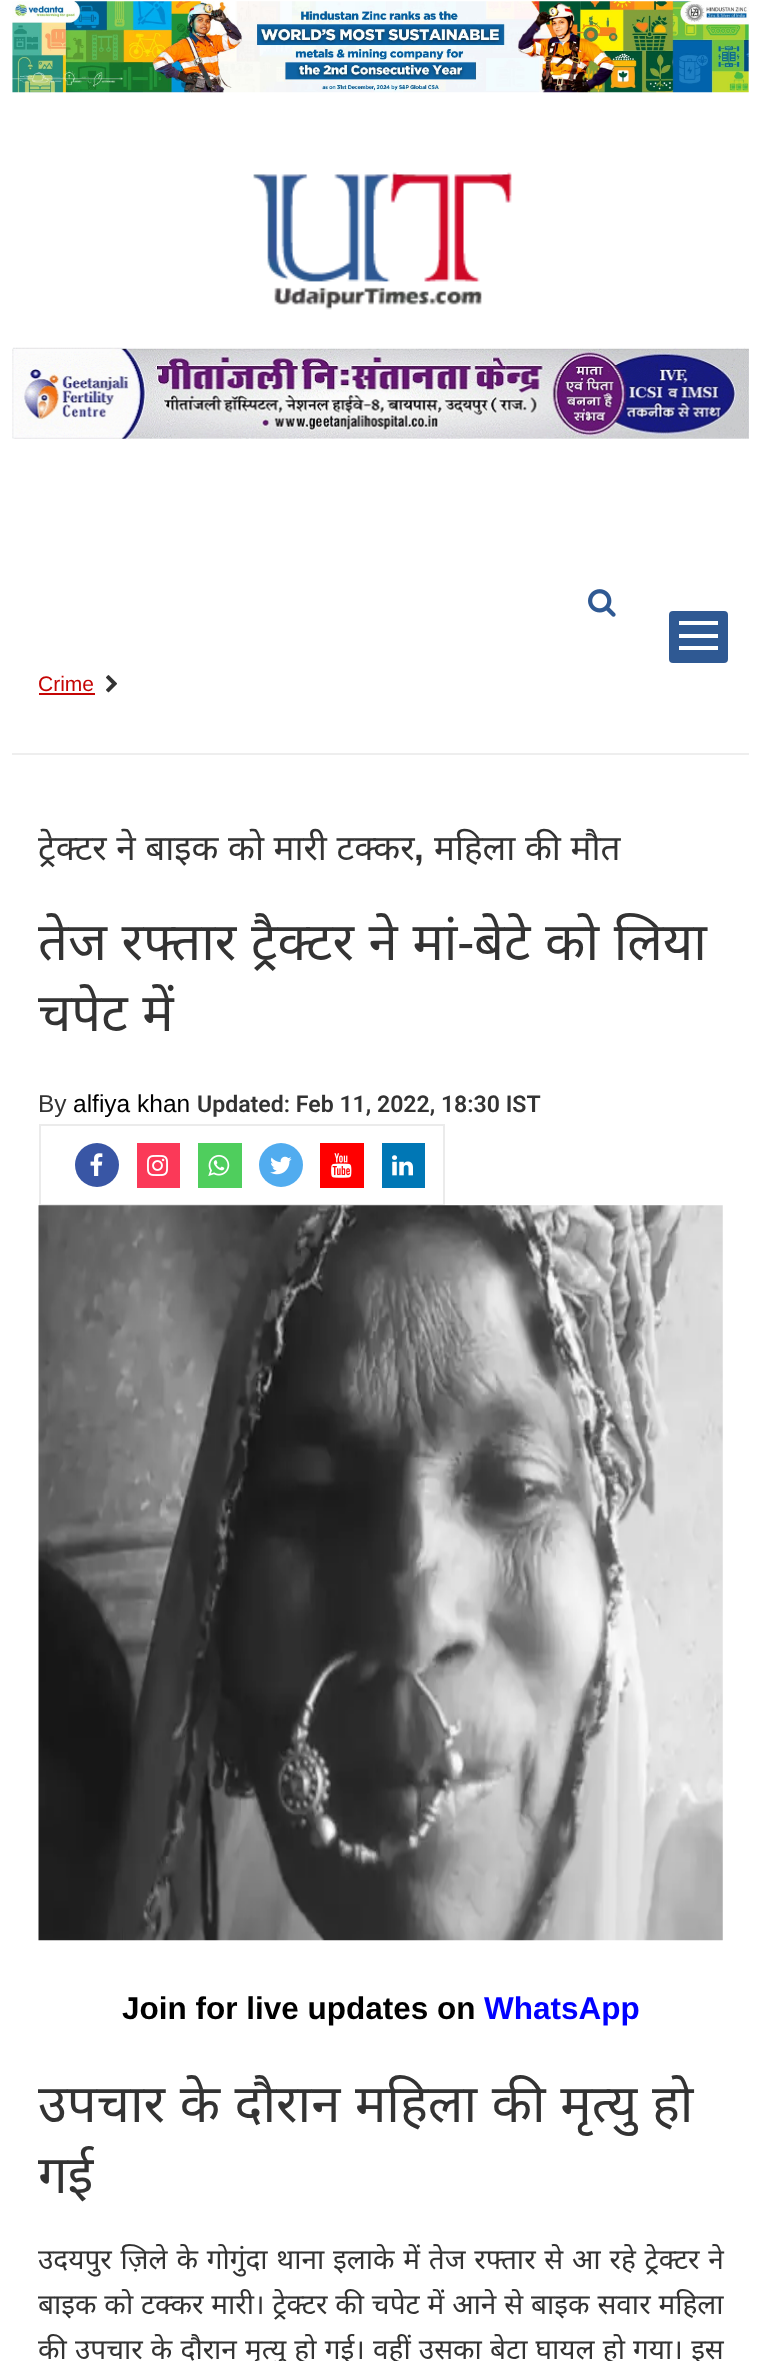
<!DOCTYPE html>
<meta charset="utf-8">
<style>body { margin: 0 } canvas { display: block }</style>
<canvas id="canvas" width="760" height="2361"></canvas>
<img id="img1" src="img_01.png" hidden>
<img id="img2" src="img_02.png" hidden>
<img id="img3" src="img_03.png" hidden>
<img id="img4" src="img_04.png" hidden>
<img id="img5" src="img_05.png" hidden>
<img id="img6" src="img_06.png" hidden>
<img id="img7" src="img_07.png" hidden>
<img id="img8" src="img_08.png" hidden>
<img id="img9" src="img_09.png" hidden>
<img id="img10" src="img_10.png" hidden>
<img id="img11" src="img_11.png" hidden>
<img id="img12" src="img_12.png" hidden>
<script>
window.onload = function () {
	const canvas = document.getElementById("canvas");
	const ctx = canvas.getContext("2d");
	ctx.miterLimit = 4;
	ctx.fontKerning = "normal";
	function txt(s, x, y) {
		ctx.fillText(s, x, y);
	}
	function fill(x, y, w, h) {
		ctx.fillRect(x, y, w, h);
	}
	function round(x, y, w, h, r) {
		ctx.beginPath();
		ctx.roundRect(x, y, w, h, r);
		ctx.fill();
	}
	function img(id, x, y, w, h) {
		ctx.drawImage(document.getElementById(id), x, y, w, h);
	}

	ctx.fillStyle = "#FFFFFF";
	fill(0, 0, 760, 2361);
	img("img1", 12, 1, 737, 92);
	img("img2", 253, 172, 259, 138);
	img("img3", 12, 347, 737, 92);
	img("img4", 588, 589, 28, 28);
	ctx.fillStyle = "#2F5993";
	round(669, 611, 59, 52, 4);
	ctx.fillStyle = "#FFFFFF";
	fill(679, 634, 39, 4);
	fill(679, 621, 39, 4);
	fill(679, 646, 39, 4);
	ctx.fillStyle = "#C50504";
	fill(39, 693, 56, 2);
	img("img5", 106, 675, 11, 18);
	ctx.fillStyle = "#EEEEEE";
	fill(12, 753, 737, 2);
	ctx.strokeStyle = "#EBEBEB";
	ctx.lineWidth = 2;
	ctx.strokeRect(40, 1125, 404, 80);
	ctx.fillStyle = "#3956A5";
	ctx.beginPath();
	ctx.arc(97, 1165, 22, 0, Math.PI * 2);
	ctx.fill();
	img("img6", 90, 1153, 13, 23);
	ctx.fillStyle = "#FB3958";
	fill(137, 1143, 43, 45);
	img("img7", 147, 1155, 21, 21);
	ctx.fillStyle = "#4FCE5D";
	fill(198, 1143, 44, 45);
	img("img8", 208, 1154, 22, 22);
	ctx.fillStyle = "#51ACEF";
	ctx.beginPath();
	ctx.arc(281, 1165, 22, 0, Math.PI * 2);
	ctx.fill();
	img("img9", 270, 1156, 22, 19);
	ctx.fillStyle = "#FF0000";
	fill(320, 1143, 44, 45);
	img("img10", 331, 1153, 21, 25);
	ctx.fillStyle = "#0077B5";
	fill(382, 1143, 43, 45);
	img("img11", 392, 1155, 21, 21);
	img("img12", 38, 1205, 685, 736);
	ctx.font = "21px Liberation Sans";
	ctx.fillStyle = "#C50504";
	txt("Crime", 38, 691);
	ctx.wordSpacing = "0.5px";
	ctx.font = "35px Noto Sans";
	ctx.fillStyle = "#333333";
	txt("ट्रेक्टर ने बाइक को मारी टक्कर", 38, 860);
	ctx.wordSpacing = "0px";
	ctx.font = "bold 35px Liberation Sans";
	txt(",", 414, 860);
	ctx.wordSpacing = "0.5px";
	ctx.font = "35px Noto Sans";
	txt("महिला की मौत", 434, 860);
	ctx.wordSpacing = "1px";
	ctx.font = "52.5px Noto Sans";
	txt("तेज रफ्तार ट्रैक्टर ने मां", 38, 960);
	ctx.wordSpacing = "0px";
	ctx.font = "52.5px Liberation Sans";
	txt("-", 457, 960);
	ctx.wordSpacing = "1px";
	ctx.font = "52.5px Noto Sans";
	txt("बेटे को लिया", 474, 960);
	txt("चपेट में", 38, 1031);
	ctx.wordSpacing = "0px";
	ctx.font = "24.5px Liberation Sans";
	txt("By", 38, 1112);
	ctx.fillStyle = "#000000";
	txt("alfiya khan", 73, 1112);
	ctx.font = "600 23.1px Roboto";
	ctx.fillStyle = "#333333";
	txt("Updated: Feb 11, 2022, 18:30 IST", 197, 1112);
	ctx.font = "bold 31.5px Liberation Sans";
	ctx.fillStyle = "#000000";
	txt("Join for live updates on", 122, 2019);
	ctx.fillStyle = "#0000FF";
	txt("WhatsApp", 484, 2019);
	ctx.wordSpacing = "1px";
	ctx.font = "52.5px Noto Sans";
	ctx.fillStyle = "#333333";
	txt("उपचार के दौरान महिला की मृत्यु हो", 38, 2122);
	ctx.wordSpacing = "0px";
	txt("गई", 38, 2193);
	ctx.wordSpacing = "1.5px";
	ctx.font = "28px Noto Sans";
	txt("उदयपुर ज़िले के गोगुंदा थाना इलाके में तेज रफ्तार से आ रहे ट्रेक्टर ने", 38, 2269);
	ctx.wordSpacing = "0.6px";
	txt("बाइक को टक्कर मारी। ट्रेक्टर की चपेट में आने से बाइक सवार महिला", 38, 2314);
	ctx.wordSpacing = "0.9px";
	txt("की उपचार के दौरान मृत्यु हो गई। वहीं उसका बेटा घायल हो गया। इस", 38, 2359);
};
</script>
